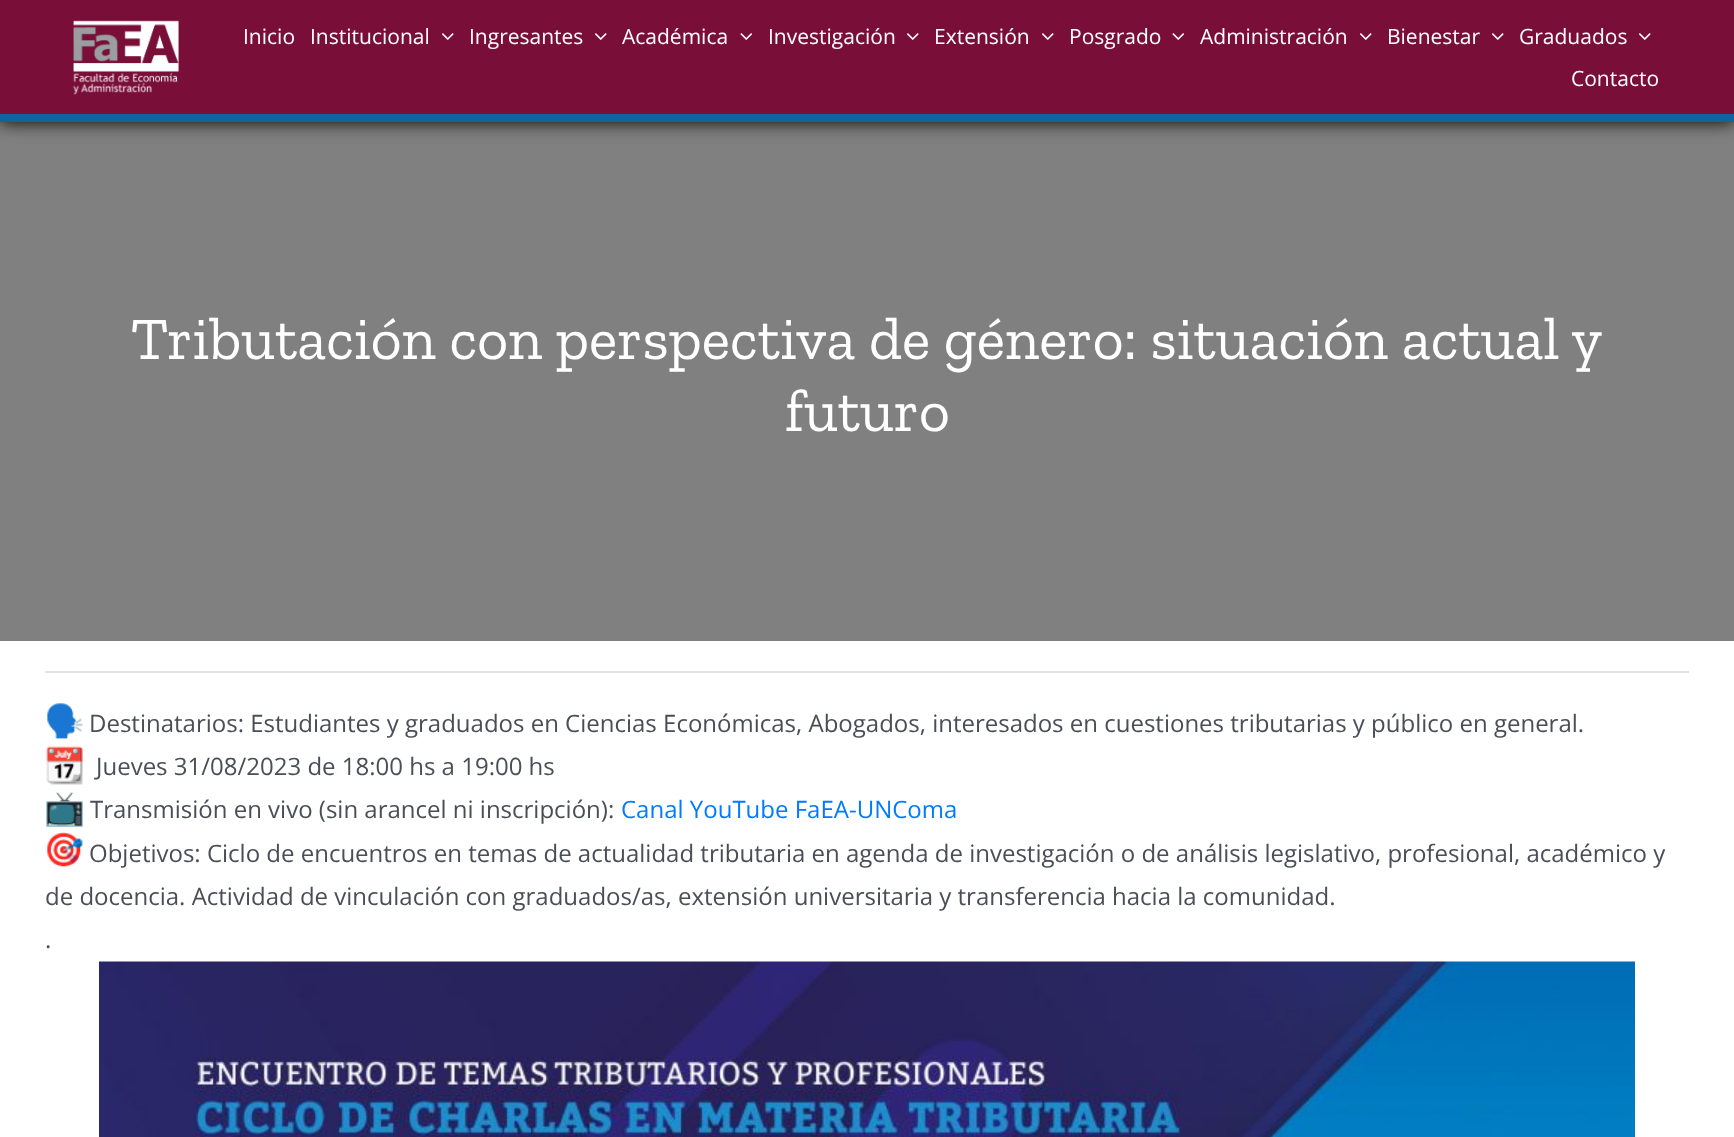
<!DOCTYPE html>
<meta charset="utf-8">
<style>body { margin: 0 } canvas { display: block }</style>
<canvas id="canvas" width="1734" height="1137"></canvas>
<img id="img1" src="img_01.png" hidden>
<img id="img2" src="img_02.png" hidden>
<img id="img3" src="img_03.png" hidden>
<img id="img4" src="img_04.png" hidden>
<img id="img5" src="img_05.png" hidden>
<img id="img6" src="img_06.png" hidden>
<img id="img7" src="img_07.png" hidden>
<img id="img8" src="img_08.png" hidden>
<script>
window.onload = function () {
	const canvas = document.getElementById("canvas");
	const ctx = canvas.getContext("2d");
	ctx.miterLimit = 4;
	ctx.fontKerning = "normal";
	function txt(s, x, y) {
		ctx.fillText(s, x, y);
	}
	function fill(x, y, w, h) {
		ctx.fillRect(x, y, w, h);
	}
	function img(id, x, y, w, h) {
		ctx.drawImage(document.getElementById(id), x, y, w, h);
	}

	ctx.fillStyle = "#FFFFFF";
	fill(0, 0, 1734, 1137);
	ctx.fillStyle = "#808080";
	fill(0, 122, 1734, 519);
	ctx.fillStyle = "#000000";
	ctx.filter = "blur(9px)";
	ctx.beginPath();
	ctx.rect(0, 0, 1734, 122);
	ctx.fill();
	ctx.filter = "none";
	ctx.fillStyle = "#790E39";
	fill(0, 0, 1734, 114);
	ctx.fillStyle = "#0E659B";
	fill(0, 114, 1734, 8);
	img("img1", 73, 20, 106, 75);
	img("img2", 442, 33, 12, 7);
	img("img2", 595, 33, 12, 7);
	img("img3", 740, 33, 12, 7);
	img("img2", 907, 33, 12, 7);
	img("img2", 1042, 33, 12, 7);
	img("img3", 1172, 33, 12, 7);
	img("img2", 1360, 33, 12, 7);
	img("img2", 1492, 33, 12, 7);
	img("img2", 1639, 33, 12, 7);
	ctx.fillStyle = "#E2E2E2";
	fill(45, 671, 1644, 2);
	img("img4", 47, 703, 36, 36);
	img("img5", 46, 746, 37, 39);
	img("img6", 46, 792, 37, 35);
	img("img7", 47, 832, 36, 35);
	img("img8", 99, 961, 1536, 176);
	ctx.font = "21px Open Sans";
	ctx.fillStyle = "#FFFFFF";
	txt("Inicio", 243, 44);
	txt("Institucional", 310, 44);
	txt("Ingresantes", 469, 44);
	txt("Académica", 622, 44);
	txt("Investigación", 768, 44);
	txt("Extensión", 934, 44);
	txt("Posgrado", 1069, 44);
	txt("Administración", 1200, 44);
	txt("Bienestar", 1387, 44);
	txt("Graduados", 1519, 44);
	txt("Contacto", 1571, 86);
	ctx.font = "60px Zilla Slab";
	txt("Tributación con perspectiva de género: situación actual y", 131, 359);
	txt("futuro", 785, 431);
	ctx.font = "24px Open Sans";
	ctx.fillStyle = "#4A4E57";
	txt("Destinatarios: Estudiantes y graduados en Ciencias Económicas, Abogados, interesados en cuestiones tributarias y público en general.", 89, 732);
	txt("Jueves 31/08/2023 de 18:00 hs a 19:00 hs", 96, 775);
	txt("Transmisión en vivo (sin arancel ni inscripción):", 90, 818);
	ctx.fillStyle = "#007BFF";
	txt("Canal YouTube FaEA-UNComa", 621, 818);
	ctx.fillStyle = "#4A4E57";
	txt("Objetivos: Ciclo de encuentros en temas de actualidad tributaria en agenda de investigación o de análisis legislativo, profesional, académico y", 89, 862);
	txt("de docencia. Actividad de vinculación con graduados/as, extensión universitaria y transferencia hacia la comunidad.", 45, 905);
	txt(".", 45, 948);
};
</script>
